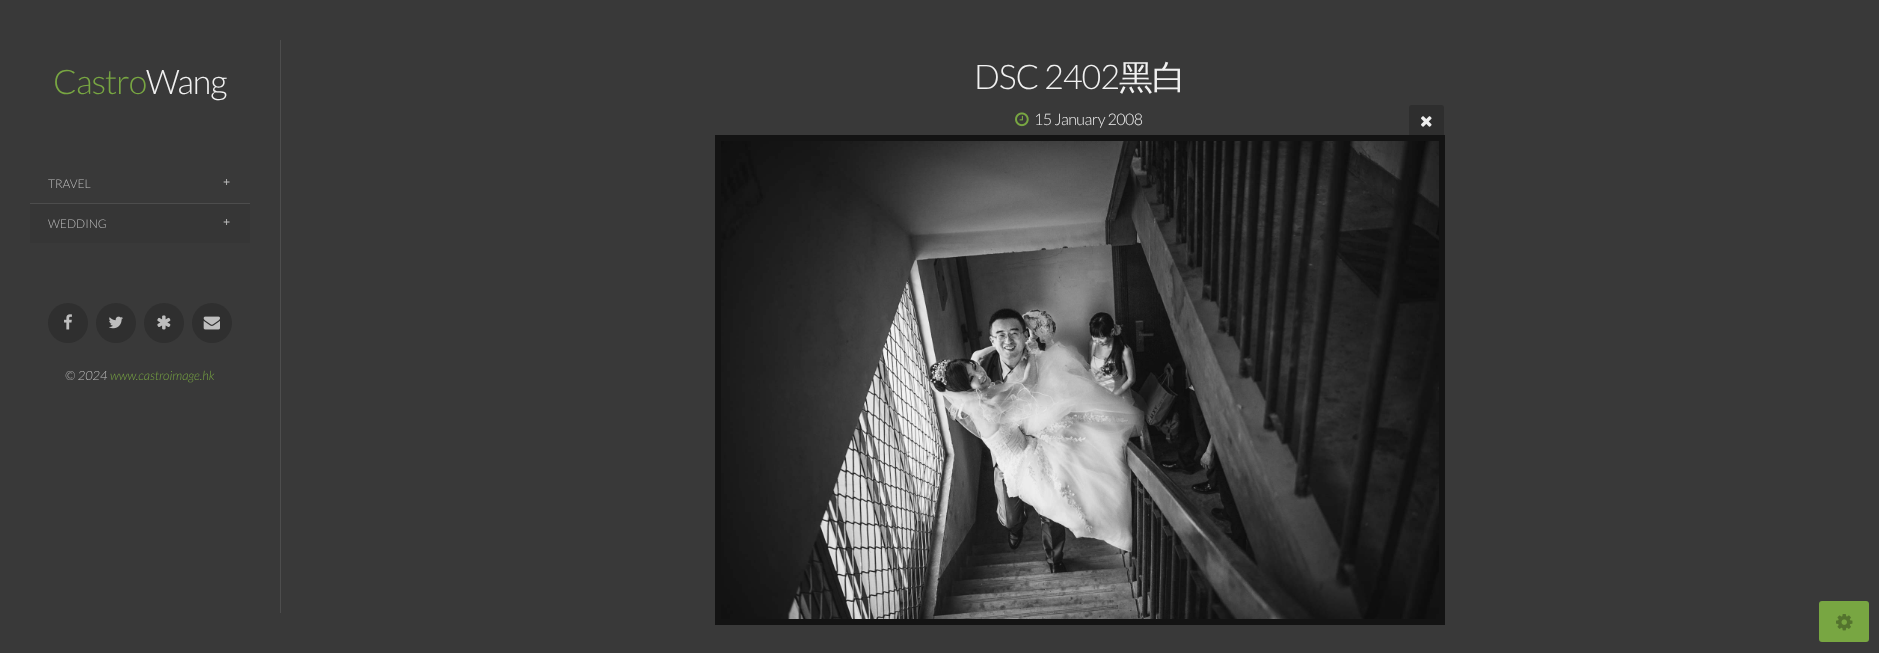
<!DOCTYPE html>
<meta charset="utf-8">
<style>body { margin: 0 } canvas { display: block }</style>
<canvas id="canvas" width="1879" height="653"></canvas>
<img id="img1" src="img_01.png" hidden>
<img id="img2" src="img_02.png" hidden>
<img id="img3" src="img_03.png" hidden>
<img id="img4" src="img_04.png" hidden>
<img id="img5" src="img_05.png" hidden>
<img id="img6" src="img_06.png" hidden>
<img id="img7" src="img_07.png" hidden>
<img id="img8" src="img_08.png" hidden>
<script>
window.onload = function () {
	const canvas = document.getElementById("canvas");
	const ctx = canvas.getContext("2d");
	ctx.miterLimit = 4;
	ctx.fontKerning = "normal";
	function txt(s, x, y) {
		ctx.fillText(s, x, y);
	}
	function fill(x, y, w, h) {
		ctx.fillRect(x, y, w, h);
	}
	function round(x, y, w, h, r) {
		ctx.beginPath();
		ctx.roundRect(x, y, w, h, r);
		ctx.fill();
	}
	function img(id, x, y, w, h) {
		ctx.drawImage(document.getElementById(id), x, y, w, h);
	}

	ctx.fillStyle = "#393939";
	fill(0, 0, 1879, 653);
	ctx.fillStyle = "#4D4D4D";
	fill(30, 203, 220, 1);
	ctx.fillStyle = "#363636";
	fill(30, 204, 220, 39);
	ctx.fillStyle = "#2F2F2F";
	ctx.beginPath();
	ctx.arc(68, 323, 20, 0, Math.PI * 2);
	ctx.fill();
	img("img1", 64, 314, 8, 16);
	ctx.beginPath();
	ctx.arc(116, 323, 20, 0, Math.PI * 2);
	ctx.fill();
	img("img2", 109, 316, 14, 13);
	ctx.beginPath();
	ctx.arc(164, 323, 20, 0, Math.PI * 2);
	ctx.fill();
	img("img3", 157, 315, 14, 15);
	ctx.beginPath();
	ctx.arc(212, 323, 20, 0, Math.PI * 2);
	ctx.fill();
	img("img4", 203, 316, 17, 14);
	ctx.fillStyle = "#4D4D4D";
	fill(280, 40, 1, 573);
	img("img5", 1015, 112, 14, 15);
	ctx.fillStyle = "#2E2E2E";
	ctx.beginPath();
	ctx.roundRect(1409, 105, 35, 30, [3, 3, 0, 0]);
	ctx.fill();
	img("img6", 1421, 116, 11, 11);
	ctx.fillStyle = "#131313";
	fill(715, 135, 730, 490);
	img("img7", 721, 141, 718, 478);
	ctx.fillStyle = "#78A642";
	round(1819, 601, 50, 41, 3);
	img("img8", 1836, 614, 17, 17);
	ctx.letterSpacing = "-1px";
	ctx.font = "300 34px Lato";
	txt("Castro", 53, 94);
	ctx.fillStyle = "#F1F1F1";
	txt("Wang", 146, 94);
	ctx.letterSpacing = "0px";
	ctx.font = "300 12px Lato";
	ctx.fillStyle = "#BEBEBE";
	txt("TRAVEL", 48, 188);
	ctx.font = "12px Liberation Mono";
	txt("+", 223, 186);
	ctx.font = "300 12px Lato";
	txt("WEDDING", 48, 228);
	ctx.font = "12px Liberation Mono";
	txt("+", 223, 226);
	ctx.font = "italic 300 12.75px Lato";
	txt("© 2024", 65, 380);
	ctx.fillStyle = "#78A642";
	txt("www.castroimage.hk", 110, 380);
	ctx.letterSpacing = "-1px";
	ctx.font = "300 34px Lato";
	ctx.fillStyle = "#F1F1F1";
	txt("DSC 2402", 974, 89);
	ctx.font = "500 34px WenQuanYi Zen Hei";
	txt("黑白", 1119, 89);
	ctx.letterSpacing = "-0.5px";
	ctx.font = "300 16px Lato";
	txt("15 January 2008", 1034, 125);
};
</script>
